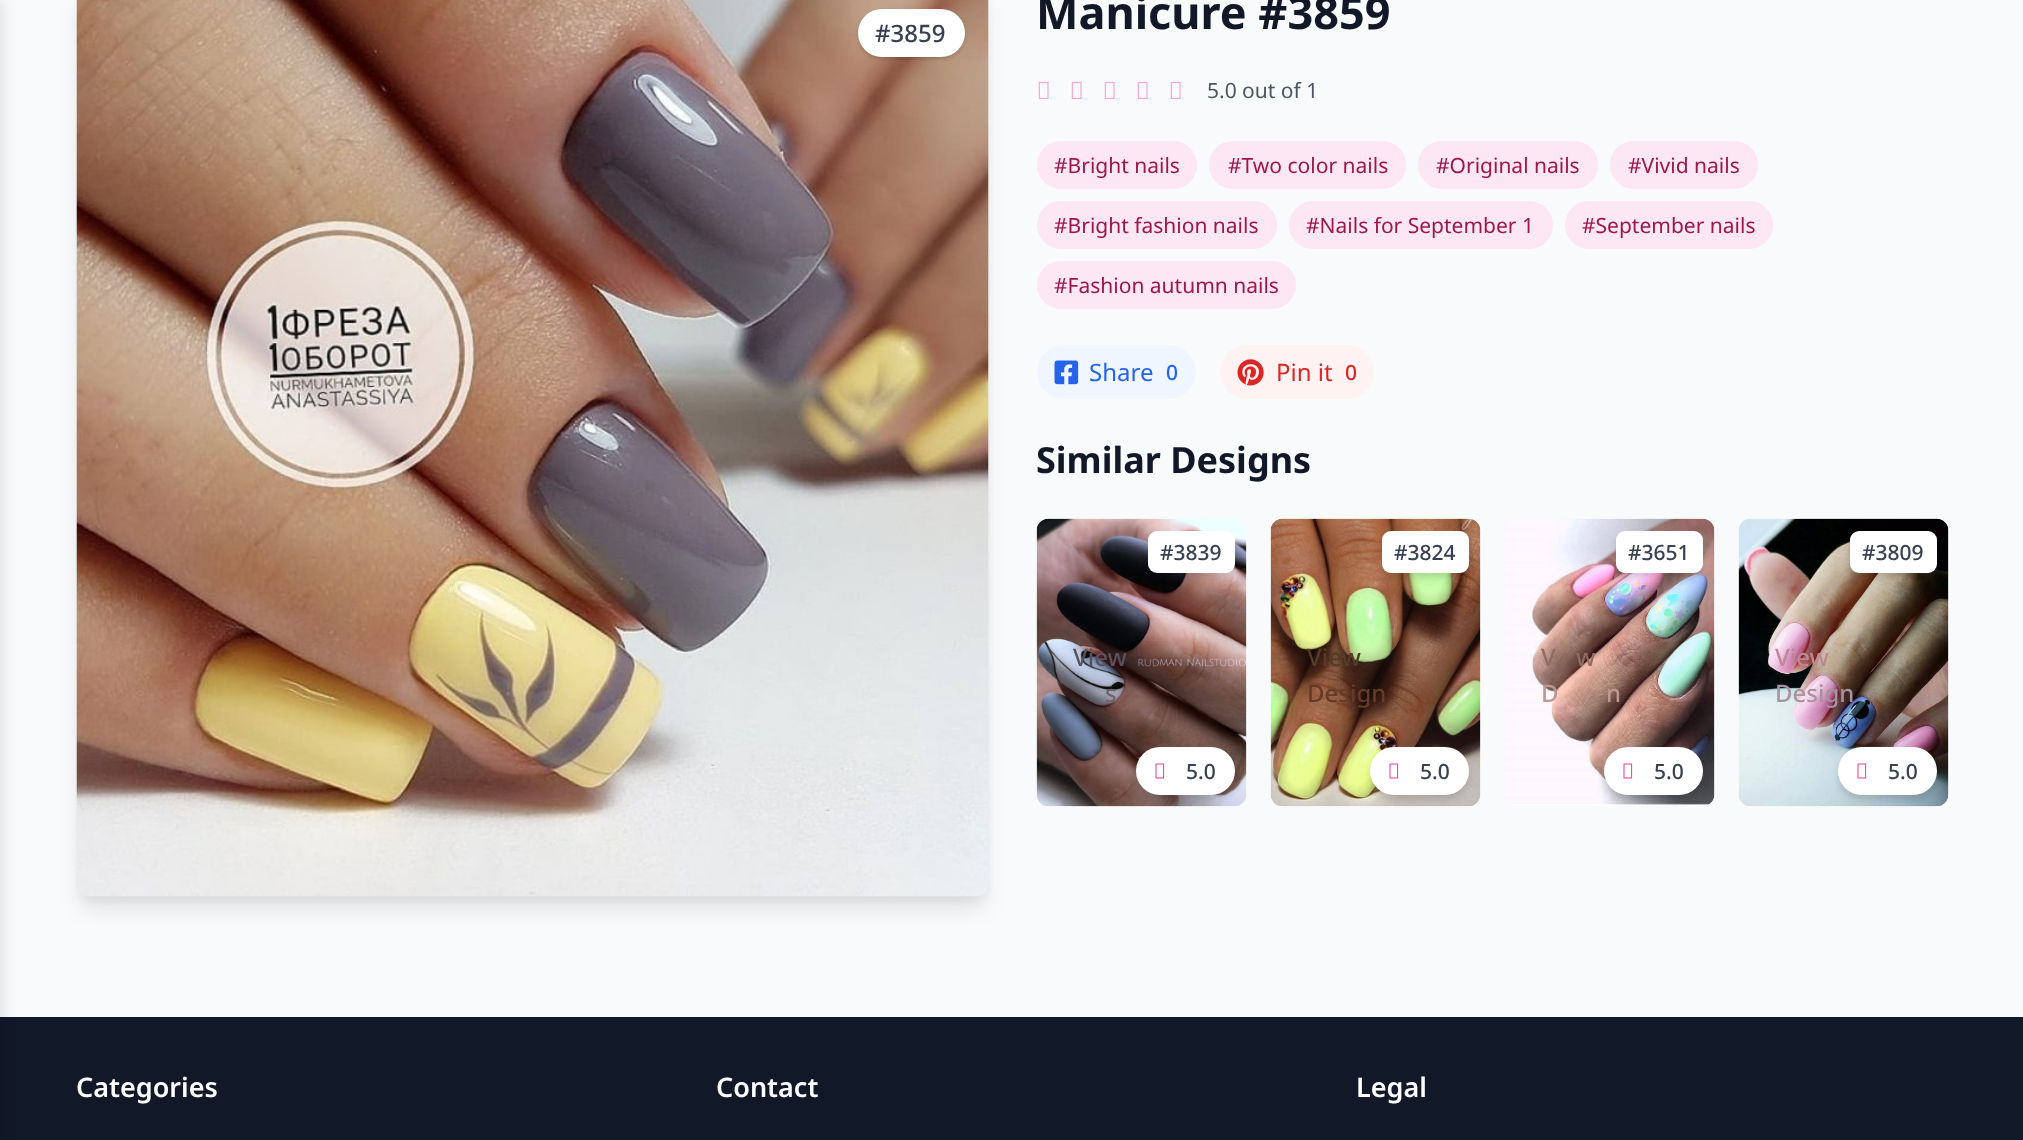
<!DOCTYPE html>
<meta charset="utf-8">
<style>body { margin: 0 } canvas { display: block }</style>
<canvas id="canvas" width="2023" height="1140"></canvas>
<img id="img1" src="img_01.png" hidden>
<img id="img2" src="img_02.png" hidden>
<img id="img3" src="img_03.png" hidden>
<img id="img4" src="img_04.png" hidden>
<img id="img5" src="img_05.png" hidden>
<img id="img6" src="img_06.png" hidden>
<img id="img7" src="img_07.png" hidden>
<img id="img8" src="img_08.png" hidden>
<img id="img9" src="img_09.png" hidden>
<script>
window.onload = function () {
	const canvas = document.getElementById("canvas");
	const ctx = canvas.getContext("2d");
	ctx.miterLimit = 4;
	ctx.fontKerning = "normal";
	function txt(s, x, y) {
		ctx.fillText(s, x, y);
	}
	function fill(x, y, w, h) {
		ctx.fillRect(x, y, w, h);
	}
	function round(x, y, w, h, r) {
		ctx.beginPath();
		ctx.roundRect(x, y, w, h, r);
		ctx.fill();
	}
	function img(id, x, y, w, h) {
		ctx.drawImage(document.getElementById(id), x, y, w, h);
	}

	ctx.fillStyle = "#F9FAFB";
	fill(0, 0, 2023, 1140);
	ctx.fillStyle = "#111827";
	fill(0, 1017, 2023, 123);
	ctx.fillStyle = "rgba(0, 0, 0, 0.1)";
	ctx.filter = "blur(7.5px)";
	ctx.beginPath();
	ctx.rect(-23, 0, 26, 1140);
	ctx.fill();
	ctx.filter = "none";
	ctx.fillStyle = "rgba(0, 0, 0, 0.05)";
	ctx.filter = "blur(4.5px)";
	ctx.beginPath();
	ctx.roundRect(80, -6, 906, 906, 9);
	ctx.fill();
	ctx.filter = "none";
	ctx.fillStyle = "rgba(0, 0, 0, 0.1)";
	ctx.filter = "blur(11px)";
	ctx.beginPath();
	ctx.roundRect(81, 5, 903, 903, 8);
	ctx.fill();
	ctx.filter = "none";
	img("img1", 76, 0, 913, 897);
	ctx.fillStyle = "rgba(0, 0, 0, 0.06)";
	ctx.filter = "blur(1.5px)";
	ctx.beginPath();
	ctx.roundRect(858, 11, 107, 48, 24);
	ctx.fill();
	ctx.filter = "none";
	ctx.fillStyle = "rgba(0, 0, 0, 0.1)";
	ctx.filter = "blur(2px)";
	ctx.beginPath();
	ctx.roundRect(858, 11, 107, 48, 24);
	ctx.fill();
	ctx.filter = "none";
	ctx.fillStyle = "#FFFFFF";
	round(858, 9, 107, 48, 24);
	img("img2", 1038, 81, 11, 18);
	img("img2", 1071, 81, 11, 18);
	img("img2", 1104, 81, 11, 18);
	img("img2", 1137, 81, 11, 18);
	img("img2", 1170, 81, 11, 18);
	ctx.fillStyle = "#FCE7F3";
	round(1037, 141, 160, 48, 24);
	round(1209, 141, 197, 48, 24);
	round(1418, 141, 180, 48, 24);
	round(1610, 141, 148, 48, 24);
	round(1037, 201, 240, 48, 24);
	round(1289, 201, 264, 48, 24);
	round(1565, 201, 208, 48, 24);
	round(1037, 261, 259, 48, 24);
	ctx.fillStyle = "#EFF6FF";
	round(1037, 345, 159, 54, 27);
	img("img3", 1054, 360, 25, 25);
	ctx.fillStyle = "#FEF2F2";
	round(1220, 345, 154, 54, 27);
	img("img4", 1237, 359, 27, 27);
	img("img5", 1036, 518, 211, 289);
	ctx.fillStyle = "rgba(0, 0, 0, 0.06)";
	ctx.filter = "blur(3px)";
	ctx.beginPath();
	ctx.roundRect(1149, 536, 84, 39, 8);
	ctx.fill();
	ctx.filter = "none";
	ctx.fillStyle = "rgba(0, 0, 0, 0.1)";
	ctx.filter = "blur(4.5px)";
	ctx.beginPath();
	ctx.roundRect(1149, 539, 84, 39, 8);
	ctx.fill();
	ctx.filter = "none";
	ctx.fillStyle = "#FFFFFF";
	round(1148, 531, 87, 42, 9);
	ctx.fillStyle = "rgba(0, 0, 0, 0.1)";
	ctx.filter = "blur(4.5px)";
	ctx.beginPath();
	ctx.roundRect(1137, 755, 96, 45, 22.5);
	ctx.fill();
	ctx.filter = "none";
	ctx.fillStyle = "#FFFFFF";
	round(1136, 747, 99, 48, 24);
	img("img6", 1155, 763, 10, 16);
	img("img7", 1270, 518, 211, 289);
	ctx.fillStyle = "rgba(0, 0, 0, 0.06)";
	ctx.filter = "blur(3px)";
	ctx.beginPath();
	ctx.roundRect(1383, 536, 84, 39, 8);
	ctx.fill();
	ctx.filter = "none";
	ctx.fillStyle = "rgba(0, 0, 0, 0.1)";
	ctx.filter = "blur(4.5px)";
	ctx.beginPath();
	ctx.roundRect(1383, 539, 84, 39, 8);
	ctx.fill();
	ctx.filter = "none";
	ctx.fillStyle = "#FFFFFF";
	round(1382, 531, 87, 42, 9);
	ctx.fillStyle = "rgba(0, 0, 0, 0.06)";
	ctx.filter = "blur(3px)";
	ctx.beginPath();
	ctx.roundRect(1371, 752, 96, 45, 22.5);
	ctx.fill();
	ctx.filter = "none";
	ctx.fillStyle = "rgba(0, 0, 0, 0.1)";
	ctx.filter = "blur(4.5px)";
	ctx.beginPath();
	ctx.roundRect(1371, 755, 96, 45, 22.5);
	ctx.fill();
	ctx.filter = "none";
	ctx.fillStyle = "#FFFFFF";
	round(1370, 747, 99, 48, 24);
	img("img6", 1389, 763, 10, 16);
	img("img8", 1505, 518, 210, 288);
	ctx.fillStyle = "rgba(0, 0, 0, 0.06)";
	ctx.filter = "blur(3px)";
	ctx.beginPath();
	ctx.roundRect(1617, 536, 84, 39, 8);
	ctx.fill();
	ctx.filter = "none";
	ctx.fillStyle = "rgba(0, 0, 0, 0.1)";
	ctx.filter = "blur(4.5px)";
	ctx.beginPath();
	ctx.roundRect(1617, 539, 84, 39, 8);
	ctx.fill();
	ctx.filter = "none";
	ctx.fillStyle = "#FFFFFF";
	round(1616, 531, 87, 42, 9);
	ctx.fillStyle = "rgba(0, 0, 0, 0.06)";
	ctx.filter = "blur(3px)";
	ctx.beginPath();
	ctx.roundRect(1605, 752, 96, 45, 22.5);
	ctx.fill();
	ctx.filter = "none";
	ctx.fillStyle = "rgba(0, 0, 0, 0.1)";
	ctx.filter = "blur(4.5px)";
	ctx.beginPath();
	ctx.roundRect(1605, 755, 96, 45, 22.5);
	ctx.fill();
	ctx.filter = "none";
	ctx.fillStyle = "#FFFFFF";
	round(1604, 747, 99, 48, 24);
	img("img6", 1623, 763, 10, 16);
	img("img9", 1738, 518, 211, 289);
	ctx.fillStyle = "rgba(0, 0, 0, 0.06)";
	ctx.filter = "blur(3px)";
	ctx.beginPath();
	ctx.roundRect(1851, 536, 84, 39, 8);
	ctx.fill();
	ctx.filter = "none";
	ctx.fillStyle = "rgba(0, 0, 0, 0.1)";
	ctx.filter = "blur(4.5px)";
	ctx.beginPath();
	ctx.roundRect(1851, 539, 84, 39, 8);
	ctx.fill();
	ctx.filter = "none";
	ctx.fillStyle = "#FFFFFF";
	round(1850, 531, 87, 42, 9);
	ctx.fillStyle = "rgba(0, 0, 0, 0.06)";
	ctx.filter = "blur(3px)";
	ctx.beginPath();
	ctx.roundRect(1839, 752, 96, 45, 22.5);
	ctx.fill();
	ctx.filter = "none";
	ctx.fillStyle = "rgba(0, 0, 0, 0.1)";
	ctx.filter = "blur(4.5px)";
	ctx.beginPath();
	ctx.roundRect(1839, 755, 96, 45, 22.5);
	ctx.fill();
	ctx.filter = "none";
	ctx.fillStyle = "#FFFFFF";
	round(1838, 747, 99, 48, 24);
	img("img6", 1857, 763, 10, 16);
	ctx.font = "500 24px Noto Sans";
	ctx.fillStyle = "#374151";
	txt("#3859", 875, 42);
	ctx.font = "bold 45px Noto Sans";
	ctx.fillStyle = "#111827";
	txt("Manicure #3859", 1036, 29);
	ctx.font = "21px Noto Sans";
	ctx.fillStyle = "#4B5563";
	txt("5.0 out of 1", 1207, 98);
	ctx.fillStyle = "#9D174D";
	txt("#Bright nails", 1054, 173);
	txt("#Two color nails", 1228, 173);
	txt("#Original nails", 1436, 173);
	txt("#Vivid nails", 1628, 173);
	txt("#Bright fashion nails", 1054, 233);
	txt("#Nails for September 1", 1306, 233);
	txt("#September nails", 1582, 233);
	txt("#Fashion autumn nails", 1054, 293);
	ctx.font = "24px Noto Sans";
	ctx.fillStyle = "#2563EB";
	txt("Share", 1089, 381);
	ctx.font = "500 21px Noto Sans";
	txt("0", 1166, 380);
	ctx.font = "24px Noto Sans";
	ctx.fillStyle = "#DC2626";
	txt("Pin it", 1276, 381);
	ctx.font = "500 21px Noto Sans";
	txt("0", 1345, 380);
	ctx.font = "bold 36px Noto Sans";
	ctx.fillStyle = "#111827";
	txt("Similar Designs", 1036, 473);
	ctx.font = "500 21px Noto Sans";
	ctx.fillStyle = "#374151";
	txt("#3839", 1160, 560);
	ctx.font = "500 24px Noto Sans";
	ctx.fillStyle = "#5A515C";
	txt("View", 1073, 666);
	ctx.fillStyle = "#736469";
	txt("s", 1105, 702);
	ctx.font = "500 21px Noto Sans";
	ctx.fillStyle = "#374151";
	txt("5.0", 1186, 779);
	txt("#3824", 1394, 560);
	ctx.font = "500 24px Noto Sans";
	ctx.fillStyle = "#543C29";
	txt("View", 1307, 666);
	ctx.fillStyle = "#643B28";
	txt("Design", 1307, 702);
	ctx.font = "500 21px Noto Sans";
	ctx.fillStyle = "#374151";
	txt("5.0", 1420, 779);
	txt("#3651", 1628, 560);
	ctx.font = "500 24px Noto Sans";
	ctx.fillStyle = "#916C62";
	txt("V", 1541, 666);
	txt("w", 1576, 666);
	ctx.fillStyle = "#BC988E";
	txt("D", 1541, 702);
	txt("n", 1606, 702);
	ctx.font = "500 21px Noto Sans";
	ctx.fillStyle = "#374151";
	txt("5.0", 1654, 779);
	txt("#3809", 1862, 560);
	ctx.font = "500 24px Noto Sans";
	ctx.fillStyle = "#BF8792";
	txt("View", 1775, 666);
	ctx.fillStyle = "#A9919F";
	txt("Design", 1775, 702);
	ctx.font = "500 21px Noto Sans";
	ctx.fillStyle = "#374151";
	txt("5.0", 1888, 779);
	ctx.font = "600 27px Noto Sans";
	ctx.fillStyle = "#FFFFFF";
	txt("Categories", 76, 1097);
	txt("Contact", 716, 1097);
	txt("Legal", 1356, 1097);
};
</script>
